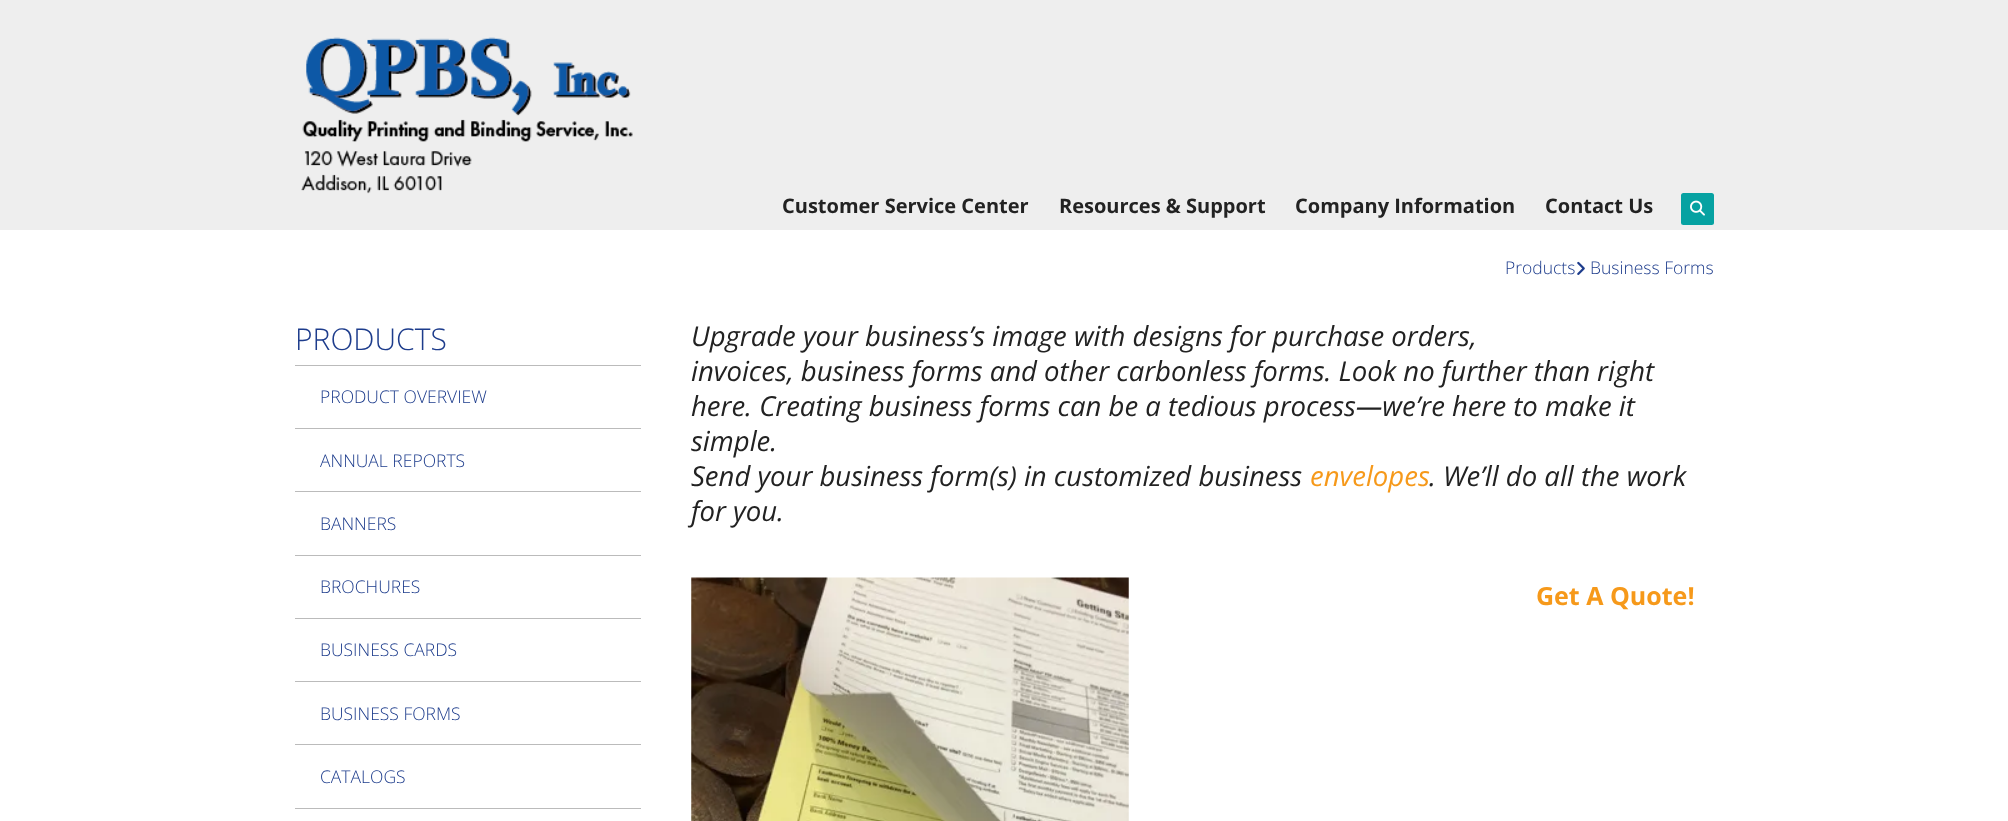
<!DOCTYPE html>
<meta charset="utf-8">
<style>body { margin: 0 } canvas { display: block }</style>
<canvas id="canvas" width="2008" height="821"></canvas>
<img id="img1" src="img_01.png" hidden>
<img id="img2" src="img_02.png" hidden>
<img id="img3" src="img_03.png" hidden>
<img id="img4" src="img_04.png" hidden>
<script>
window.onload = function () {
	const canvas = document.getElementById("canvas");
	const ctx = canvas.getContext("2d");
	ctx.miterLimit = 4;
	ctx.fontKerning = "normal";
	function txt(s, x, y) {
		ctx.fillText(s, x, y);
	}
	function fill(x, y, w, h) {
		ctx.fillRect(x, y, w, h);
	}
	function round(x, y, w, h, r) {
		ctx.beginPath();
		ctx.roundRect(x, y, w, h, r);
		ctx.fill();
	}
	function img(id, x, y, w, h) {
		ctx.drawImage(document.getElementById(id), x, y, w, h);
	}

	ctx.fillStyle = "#FFFFFF";
	fill(0, 0, 2008, 821);
	ctx.fillStyle = "#EEEEEE";
	fill(0, 0, 2008, 230);
	img("img1", 301, 37, 332, 157);
	ctx.fillStyle = "#06A2A2";
	round(1681, 193, 33, 32, 2.5);
	img("img2", 1690, 200, 15, 16);
	img("img3", 1577, 261, 8, 14);
	ctx.fillStyle = "#BBBBBB";
	fill(295, 365, 346, 1);
	fill(295, 428, 346, 1);
	fill(295, 491, 346, 1);
	fill(295, 555, 346, 1);
	fill(295, 618, 346, 1);
	fill(295, 681, 346, 1);
	fill(295, 744, 346, 1);
	fill(295, 808, 346, 1);
	img("img4", 691, 577, 438, 244);
	ctx.font = "bold 20px Open Sans";
	ctx.fillStyle = "#222222";
	txt("Customer Service Center", 782, 213);
	txt("Resources & Support", 1059, 213);
	txt("Company Information", 1295, 213);
	txt("Contact Us", 1545, 213);
	ctx.font = "300 17.5px Open Sans";
	ctx.fillStyle = "#1D3C8C";
	txt("Products", 1505, 274);
	txt("Business Forms", 1590, 274);
	ctx.font = "300 30px Open Sans";
	txt("PRODUCTS", 295, 350);
	ctx.font = "300 17.5px Open Sans";
	txt("PRODUCT OVERVIEW", 320, 403);
	txt("ANNUAL REPORTS", 320, 467);
	txt("BANNERS", 320, 530);
	txt("BROCHURES", 320, 593);
	txt("BUSINESS CARDS", 320, 656);
	txt("BUSINESS FORMS", 320, 720);
	txt("CATALOGS", 320, 783);
	ctx.font = "italic 27.5px Open Sans";
	ctx.fillStyle = "#222222";
	txt("Upgrade your business’s image with designs for purchase orders,", 691, 346);
	txt("invoices, business forms and other carbonless forms. Look no further than right", 691, 381);
	txt("here. Creating business forms can be a tedious process—we’re here to make it", 691, 416);
	txt("simple.", 691, 451);
	txt("Send your business form(s) in customized business", 691, 486);
	ctx.fillStyle = "#F6991A";
	txt("envelopes", 1310, 486);
	ctx.fillStyle = "#222222";
	txt(". We’ll do all the work", 1429, 486);
	txt("for you.", 691, 521);
	ctx.font = "bold 25px Open Sans";
	ctx.fillStyle = "#F6991A";
	txt("Get A Quote!", 1536, 605);
};
</script>
